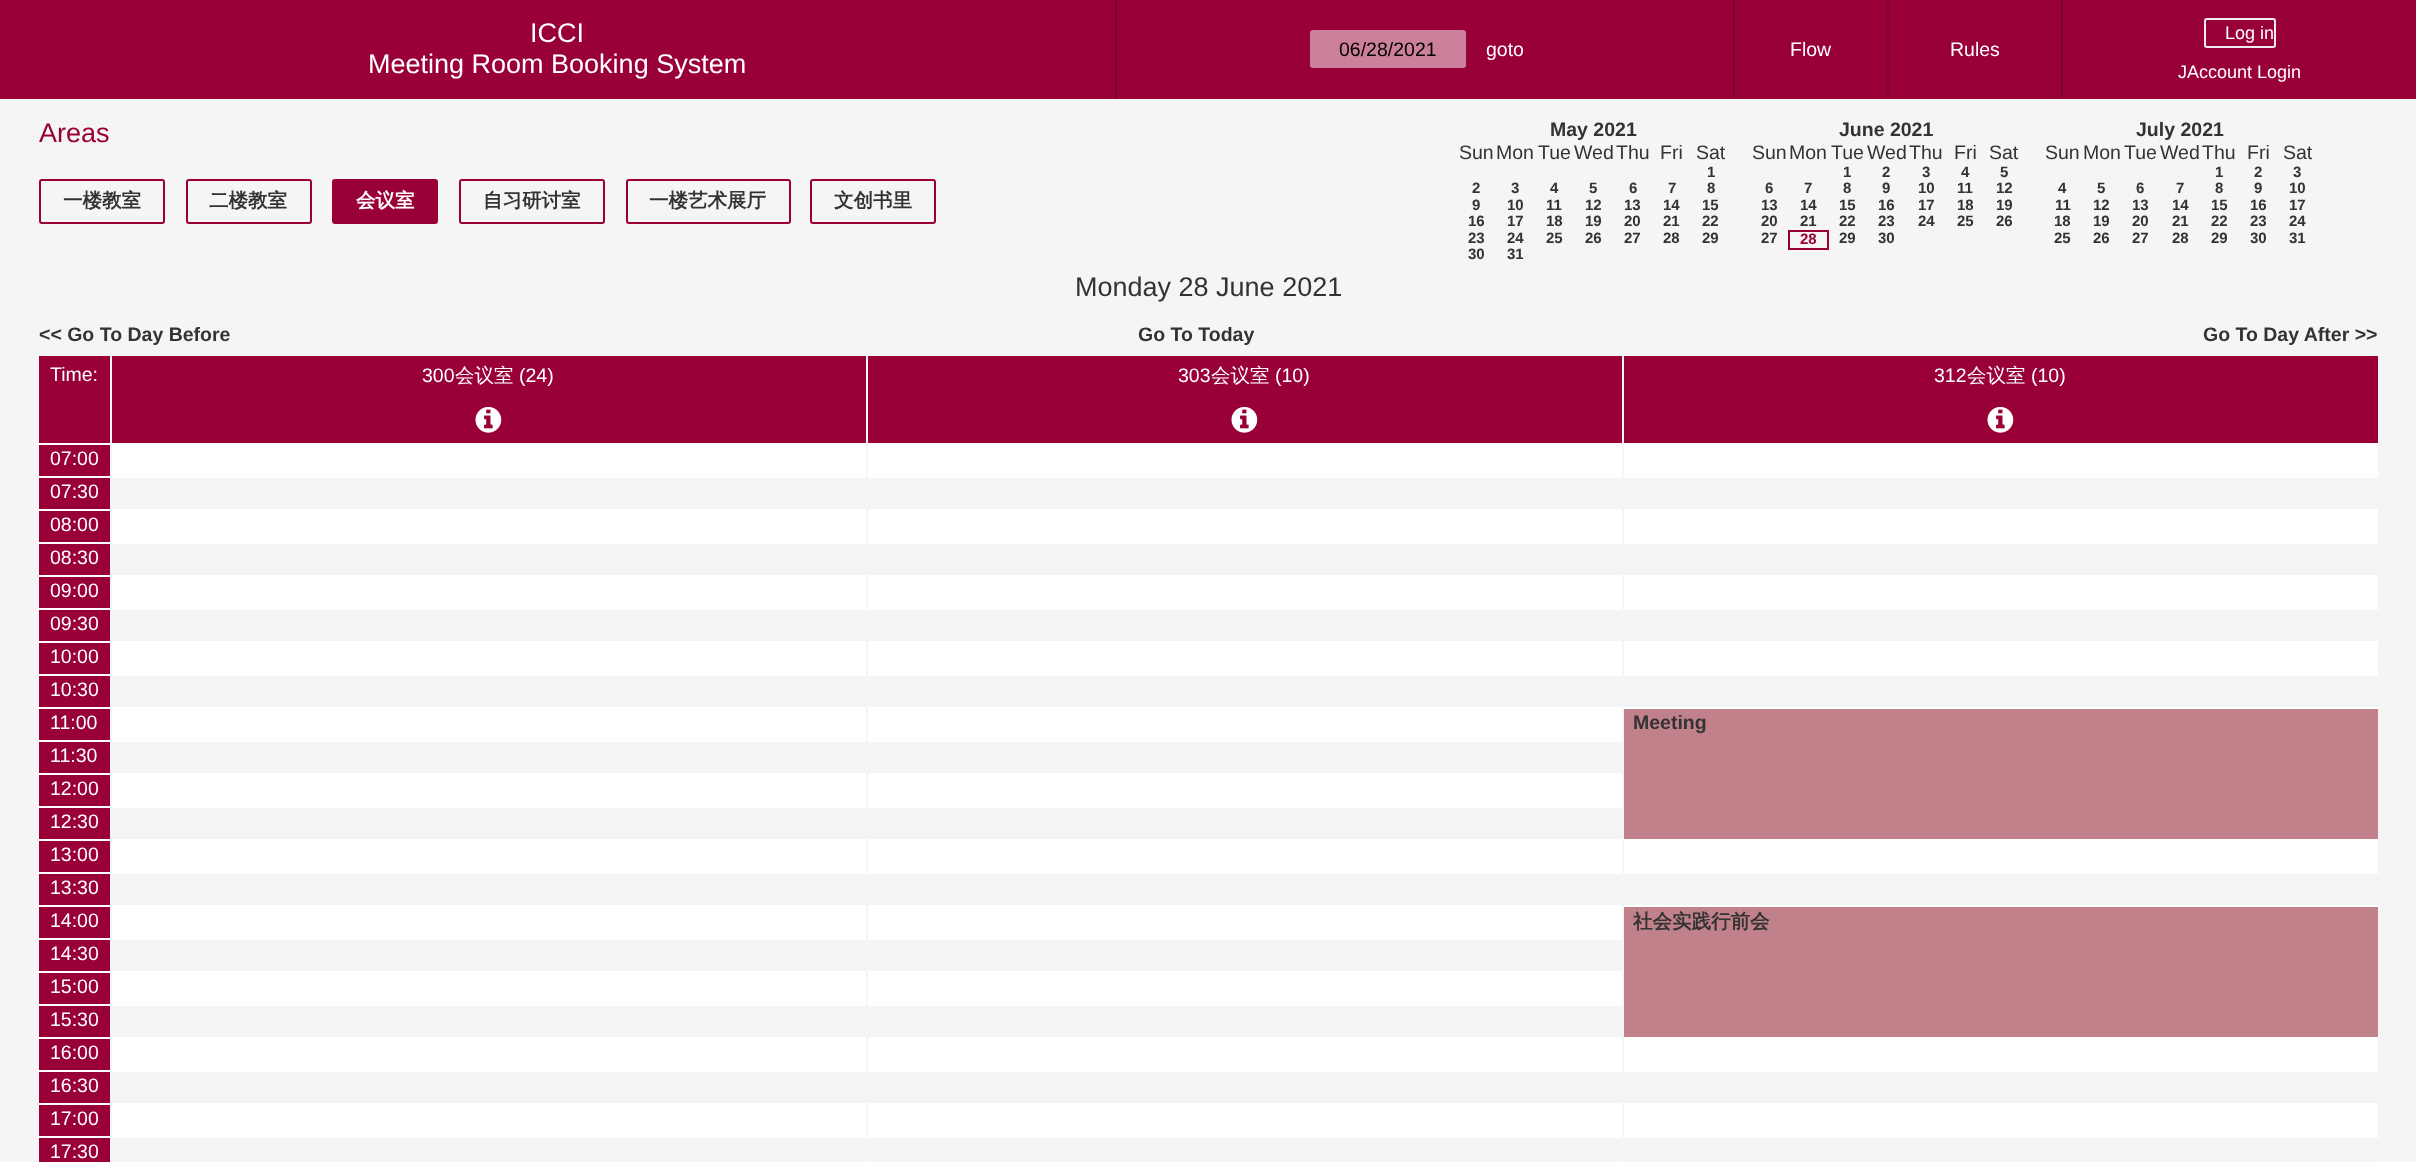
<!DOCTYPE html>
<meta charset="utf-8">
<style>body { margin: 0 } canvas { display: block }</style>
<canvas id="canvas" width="2416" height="1162"></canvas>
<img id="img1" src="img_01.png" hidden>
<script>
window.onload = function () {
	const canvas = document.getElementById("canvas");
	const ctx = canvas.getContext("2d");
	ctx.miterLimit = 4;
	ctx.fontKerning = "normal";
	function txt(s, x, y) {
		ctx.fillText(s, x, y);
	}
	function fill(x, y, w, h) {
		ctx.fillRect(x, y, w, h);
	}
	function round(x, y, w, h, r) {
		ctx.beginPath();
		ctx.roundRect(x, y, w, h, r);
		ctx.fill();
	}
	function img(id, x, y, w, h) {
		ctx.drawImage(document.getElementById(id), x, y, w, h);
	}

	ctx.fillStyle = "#F5F5F5";
	fill(0, 0, 2416, 1162);
	ctx.fillStyle = "#9A0038";
	fill(0, 0, 2416, 99);
	ctx.fillStyle = "#7E0331";
	fill(1115, 0, 2, 99);
	ctx.fillStyle = "#CD809C";
	round(1310, 30, 156, 38, 3);
	ctx.fillStyle = "#7E0331";
	fill(1733, 0, 2, 99);
	fill(1887, 0, 2, 99);
	fill(2061, 0, 2, 99);
	ctx.beginPath();
	ctx.roundRect(2205, 19, 70, 28, 2);
	ctx.strokeStyle = "#EEEEEE";
	ctx.lineWidth = 2;
	ctx.stroke();
	ctx.beginPath();
	ctx.roundRect(40, 180, 124, 43, 2);
	ctx.strokeStyle = "#9A0038";
	ctx.stroke();
	ctx.beginPath();
	ctx.roundRect(187, 180, 124, 43, 2);
	ctx.stroke();
	ctx.fillStyle = "#9A0038";
	ctx.beginPath();
	ctx.roundRect(333, 180, 104, 43, 2);
	ctx.fill();
	ctx.stroke();
	ctx.beginPath();
	ctx.roundRect(460, 180, 144, 43, 2);
	ctx.stroke();
	ctx.beginPath();
	ctx.roundRect(627, 180, 163, 43, 2);
	ctx.stroke();
	ctx.beginPath();
	ctx.roundRect(811, 180, 124, 43, 2);
	ctx.stroke();
	fill(1788, 230, 41, 2);
	fill(1827, 230, 2, 19);
	fill(1788, 248, 41, 2);
	fill(1788, 230, 2, 19);
	fill(39, 356, 71, 87);
	fill(112, 356, 754, 87);
	img("img1", 475, 406, 27, 27);
	fill(868, 356, 754, 87);
	img("img1", 1231, 406, 27, 27);
	fill(1624, 356, 754, 87);
	img("img1", 1987, 406, 27, 27);
	fill(39, 445, 71, 31);
	ctx.fillStyle = "#FFFFFF";
	fill(39, 443, 71, 2);
	fill(112, 443, 754, 33);
	fill(868, 443, 754, 33);
	fill(1624, 443, 754, 33);
	ctx.fillStyle = "#9A0038";
	fill(39, 478, 71, 31);
	ctx.fillStyle = "#FFFFFF";
	fill(39, 476, 2339, 2);
	ctx.fillStyle = "#F2F4F6";
	fill(112, 478, 754, 31);
	ctx.fillStyle = "#F5F5F5";
	fill(110, 476, 2, 2);
	ctx.fillStyle = "#F2F4F6";
	fill(868, 478, 754, 31);
	ctx.fillStyle = "#F5F5F5";
	fill(866, 476, 2, 2);
	ctx.fillStyle = "#F2F4F6";
	fill(1624, 478, 754, 31);
	ctx.fillStyle = "#F5F5F5";
	fill(1622, 476, 2, 2);
	ctx.fillStyle = "#9A0038";
	fill(39, 511, 71, 31);
	ctx.fillStyle = "#FFFFFF";
	fill(39, 509, 71, 2);
	fill(112, 509, 754, 33);
	fill(868, 509, 754, 33);
	fill(1624, 509, 754, 33);
	ctx.fillStyle = "#9A0038";
	fill(39, 544, 71, 31);
	ctx.fillStyle = "#FFFFFF";
	fill(39, 542, 2339, 2);
	ctx.fillStyle = "#F2F4F6";
	fill(112, 544, 754, 31);
	ctx.fillStyle = "#F5F5F5";
	fill(110, 542, 2, 2);
	ctx.fillStyle = "#F2F4F6";
	fill(868, 544, 754, 31);
	ctx.fillStyle = "#F5F5F5";
	fill(866, 542, 2, 2);
	ctx.fillStyle = "#F2F4F6";
	fill(1624, 544, 754, 31);
	ctx.fillStyle = "#F5F5F5";
	fill(1622, 542, 2, 2);
	ctx.fillStyle = "#9A0038";
	fill(39, 577, 71, 31);
	ctx.fillStyle = "#FFFFFF";
	fill(39, 575, 71, 2);
	fill(112, 575, 754, 33);
	fill(868, 575, 754, 33);
	fill(1624, 575, 754, 33);
	ctx.fillStyle = "#9A0038";
	fill(39, 610, 71, 31);
	ctx.fillStyle = "#FFFFFF";
	fill(39, 608, 2339, 2);
	ctx.fillStyle = "#F2F4F6";
	fill(112, 610, 754, 31);
	ctx.fillStyle = "#F5F5F5";
	fill(110, 608, 2, 2);
	ctx.fillStyle = "#F2F4F6";
	fill(868, 610, 754, 31);
	ctx.fillStyle = "#F5F5F5";
	fill(866, 608, 2, 2);
	ctx.fillStyle = "#F2F4F6";
	fill(1624, 610, 754, 31);
	ctx.fillStyle = "#F5F5F5";
	fill(1622, 608, 2, 2);
	ctx.fillStyle = "#9A0038";
	fill(39, 643, 71, 31);
	ctx.fillStyle = "#FFFFFF";
	fill(39, 641, 71, 2);
	fill(112, 641, 754, 33);
	fill(868, 641, 754, 33);
	fill(1624, 641, 754, 33);
	ctx.fillStyle = "#9A0038";
	fill(39, 676, 71, 31);
	ctx.fillStyle = "#FFFFFF";
	fill(39, 674, 2339, 2);
	ctx.fillStyle = "#F2F4F6";
	fill(112, 676, 754, 31);
	ctx.fillStyle = "#F5F5F5";
	fill(110, 674, 2, 2);
	ctx.fillStyle = "#F2F4F6";
	fill(868, 676, 754, 31);
	ctx.fillStyle = "#F5F5F5";
	fill(866, 674, 2, 2);
	ctx.fillStyle = "#F2F4F6";
	fill(1624, 676, 754, 31);
	ctx.fillStyle = "#F5F5F5";
	fill(1622, 674, 2, 2);
	ctx.fillStyle = "#9A0038";
	fill(39, 709, 71, 31);
	ctx.fillStyle = "#FFFFFF";
	fill(39, 707, 71, 2);
	fill(112, 707, 754, 33);
	fill(868, 707, 754, 33);
	ctx.fillStyle = "#C1818B";
	fill(1624, 709, 754, 130);
	ctx.fillStyle = "#FFFFFF";
	fill(1622, 707, 756, 2);
	ctx.fillStyle = "#F5F5F5";
	fill(1622, 707, 2, 2);
	ctx.fillStyle = "#9A0038";
	fill(39, 742, 71, 31);
	ctx.fillStyle = "#FFFFFF";
	fill(39, 740, 1583, 2);
	ctx.fillStyle = "#F2F4F6";
	fill(112, 742, 754, 31);
	ctx.fillStyle = "#F5F5F5";
	fill(110, 740, 2, 2);
	ctx.fillStyle = "#F2F4F6";
	fill(868, 742, 754, 31);
	ctx.fillStyle = "#F5F5F5";
	fill(866, 740, 2, 2);
	ctx.fillStyle = "#9A0038";
	fill(39, 775, 71, 31);
	ctx.fillStyle = "#FFFFFF";
	fill(39, 773, 71, 2);
	fill(112, 773, 754, 33);
	fill(868, 773, 754, 33);
	ctx.fillStyle = "#9A0038";
	fill(39, 808, 71, 31);
	ctx.fillStyle = "#FFFFFF";
	fill(39, 806, 1583, 2);
	ctx.fillStyle = "#F2F4F6";
	fill(112, 808, 754, 31);
	ctx.fillStyle = "#F5F5F5";
	fill(110, 806, 2, 2);
	ctx.fillStyle = "#F2F4F6";
	fill(868, 808, 754, 31);
	ctx.fillStyle = "#F5F5F5";
	fill(866, 806, 2, 2);
	ctx.fillStyle = "#9A0038";
	fill(39, 841, 71, 31);
	ctx.fillStyle = "#FFFFFF";
	fill(39, 839, 71, 2);
	fill(112, 839, 754, 33);
	fill(868, 839, 754, 33);
	fill(1624, 839, 754, 33);
	ctx.fillStyle = "#9A0038";
	fill(39, 874, 71, 31);
	ctx.fillStyle = "#FFFFFF";
	fill(39, 872, 2339, 2);
	ctx.fillStyle = "#F2F4F6";
	fill(112, 874, 754, 31);
	ctx.fillStyle = "#F5F5F5";
	fill(110, 872, 2, 2);
	ctx.fillStyle = "#F2F4F6";
	fill(868, 874, 754, 31);
	ctx.fillStyle = "#F5F5F5";
	fill(866, 872, 2, 2);
	ctx.fillStyle = "#F2F4F6";
	fill(1624, 874, 754, 31);
	ctx.fillStyle = "#F5F5F5";
	fill(1622, 872, 2, 2);
	ctx.fillStyle = "#9A0038";
	fill(39, 907, 71, 31);
	ctx.fillStyle = "#FFFFFF";
	fill(39, 905, 71, 2);
	fill(112, 905, 754, 33);
	fill(868, 905, 754, 33);
	ctx.fillStyle = "#C1818B";
	fill(1624, 907, 754, 130);
	ctx.fillStyle = "#FFFFFF";
	fill(1622, 905, 756, 2);
	ctx.fillStyle = "#F5F5F5";
	fill(1622, 905, 2, 2);
	ctx.fillStyle = "#9A0038";
	fill(39, 940, 71, 31);
	ctx.fillStyle = "#FFFFFF";
	fill(39, 938, 1583, 2);
	ctx.fillStyle = "#F2F4F6";
	fill(112, 940, 754, 31);
	ctx.fillStyle = "#F5F5F5";
	fill(110, 938, 2, 2);
	ctx.fillStyle = "#F2F4F6";
	fill(868, 940, 754, 31);
	ctx.fillStyle = "#F5F5F5";
	fill(866, 938, 2, 2);
	ctx.fillStyle = "#9A0038";
	fill(39, 973, 71, 31);
	ctx.fillStyle = "#FFFFFF";
	fill(39, 971, 71, 2);
	fill(112, 971, 754, 33);
	fill(868, 971, 754, 33);
	ctx.fillStyle = "#9A0038";
	fill(39, 1006, 71, 31);
	ctx.fillStyle = "#FFFFFF";
	fill(39, 1004, 1583, 2);
	ctx.fillStyle = "#F2F4F6";
	fill(112, 1006, 754, 31);
	ctx.fillStyle = "#F5F5F5";
	fill(110, 1004, 2, 2);
	ctx.fillStyle = "#F2F4F6";
	fill(868, 1006, 754, 31);
	ctx.fillStyle = "#F5F5F5";
	fill(866, 1004, 2, 2);
	ctx.fillStyle = "#9A0038";
	fill(39, 1039, 71, 31);
	ctx.fillStyle = "#FFFFFF";
	fill(39, 1037, 71, 2);
	fill(112, 1037, 754, 33);
	fill(868, 1037, 754, 33);
	fill(1624, 1037, 754, 33);
	ctx.fillStyle = "#9A0038";
	fill(39, 1072, 71, 31);
	ctx.fillStyle = "#FFFFFF";
	fill(39, 1070, 2339, 2);
	ctx.fillStyle = "#F2F4F6";
	fill(112, 1072, 754, 31);
	ctx.fillStyle = "#F5F5F5";
	fill(110, 1070, 2, 2);
	ctx.fillStyle = "#F2F4F6";
	fill(868, 1072, 754, 31);
	ctx.fillStyle = "#F5F5F5";
	fill(866, 1070, 2, 2);
	ctx.fillStyle = "#F2F4F6";
	fill(1624, 1072, 754, 31);
	ctx.fillStyle = "#F5F5F5";
	fill(1622, 1070, 2, 2);
	ctx.fillStyle = "#9A0038";
	fill(39, 1105, 71, 31);
	ctx.fillStyle = "#FFFFFF";
	fill(39, 1103, 71, 2);
	fill(112, 1103, 754, 33);
	fill(868, 1103, 754, 33);
	fill(1624, 1103, 754, 33);
	ctx.fillStyle = "#9A0038";
	fill(39, 1138, 71, 24);
	ctx.fillStyle = "#FFFFFF";
	fill(39, 1136, 2339, 2);
	ctx.fillStyle = "#F2F4F6";
	fill(112, 1138, 754, 24);
	ctx.fillStyle = "#F5F5F5";
	fill(110, 1136, 2, 2);
	ctx.fillStyle = "#F2F4F6";
	fill(868, 1138, 754, 24);
	ctx.fillStyle = "#F5F5F5";
	fill(866, 1136, 2, 2);
	ctx.fillStyle = "#F2F4F6";
	fill(1624, 1138, 754, 24);
	ctx.fillStyle = "#F5F5F5";
	fill(1622, 1136, 2, 2);
	ctx.font = "27px Liberation Sans";
	ctx.fillStyle = "#FFFFFF";
	txt("ICCI", 530, 42);
	txt("Meeting Room Booking System", 368, 73);
	ctx.font = "19.5px Liberation Sans";
	ctx.fillStyle = "#000000";
	txt("06/28/2021", 1339, 56);
	ctx.fillStyle = "#FFFFFF";
	txt("goto", 1486, 56);
	txt("Flow", 1790, 56);
	txt("Rules", 1950, 56);
	ctx.font = "18px Liberation Sans";
	txt("Log in", 2225, 39);
	txt("JAccount Login", 2178, 78);
	ctx.font = "27px Liberation Sans";
	ctx.fillStyle = "#9A0038";
	txt("Areas", 39, 142);
	ctx.font = "bold 19.5px WenQuanYi Zen Hei";
	ctx.fillStyle = "#333333";
	txt("一楼教室", 63, 207);
	txt("二楼教室", 209, 207);
	ctx.fillStyle = "#FFFFFF";
	txt("会议室", 356, 207);
	ctx.fillStyle = "#333333";
	txt("自习研讨室", 483, 207);
	txt("一楼艺术展厅", 649, 207);
	txt("文创书里", 834, 207);
	ctx.font = "bold 19.5px Liberation Sans";
	txt("May 2021", 1550, 136);
	ctx.font = "19.5px Liberation Sans";
	txt("Sun", 1459, 159);
	txt("Mon", 1496, 159);
	txt("Tue", 1538, 159);
	txt("Wed", 1574, 159);
	txt("Thu", 1616, 159);
	txt("Fri", 1660, 159);
	txt("Sat", 1696, 159);
	ctx.font = "bold 15px Liberation Sans";
	txt("1", 1707, 177);
	txt("2", 1472, 193);
	txt("3", 1511, 193);
	txt("4", 1550, 193);
	txt("5", 1589, 193);
	txt("6", 1629, 193);
	txt("7", 1668, 193);
	txt("8", 1707, 193);
	txt("9", 1472, 210);
	txt("10", 1507, 210);
	txt("11", 1546, 210);
	txt("12", 1585, 210);
	txt("13", 1624, 210);
	txt("14", 1663, 210);
	txt("15", 1702, 210);
	txt("16", 1468, 226);
	txt("17", 1507, 226);
	txt("18", 1546, 226);
	txt("19", 1585, 226);
	txt("20", 1624, 226);
	txt("21", 1663, 226);
	txt("22", 1702, 226);
	txt("23", 1468, 243);
	txt("24", 1507, 243);
	txt("25", 1546, 243);
	txt("26", 1585, 243);
	txt("27", 1624, 243);
	txt("28", 1663, 243);
	txt("29", 1702, 243);
	txt("30", 1468, 259);
	txt("31", 1507, 259);
	ctx.font = "bold 19.5px Liberation Sans";
	txt("June 2021", 1839, 136);
	ctx.font = "19.5px Liberation Sans";
	txt("Sun", 1752, 159);
	txt("Mon", 1789, 159);
	txt("Tue", 1831, 159);
	txt("Wed", 1867, 159);
	txt("Thu", 1909, 159);
	txt("Fri", 1954, 159);
	txt("Sat", 1989, 159);
	ctx.font = "bold 15px Liberation Sans";
	txt("1", 1843, 177);
	txt("2", 1882, 177);
	txt("3", 1922, 177);
	txt("4", 1961, 177);
	txt("5", 2000, 177);
	txt("6", 1765, 193);
	txt("7", 1804, 193);
	txt("8", 1843, 193);
	txt("9", 1882, 193);
	txt("10", 1918, 193);
	txt("11", 1957, 193);
	txt("12", 1996, 193);
	txt("13", 1761, 210);
	txt("14", 1800, 210);
	txt("15", 1839, 210);
	txt("16", 1878, 210);
	txt("17", 1918, 210);
	txt("18", 1957, 210);
	txt("19", 1996, 210);
	txt("20", 1761, 226);
	txt("21", 1800, 226);
	txt("22", 1839, 226);
	txt("23", 1878, 226);
	txt("24", 1918, 226);
	txt("25", 1957, 226);
	txt("26", 1996, 226);
	txt("27", 1761, 243);
	ctx.fillStyle = "#9A0038";
	txt("28", 1800, 244);
	ctx.fillStyle = "#333333";
	txt("29", 1839, 243);
	txt("30", 1878, 243);
	ctx.font = "bold 19.5px Liberation Sans";
	txt("July 2021", 2136, 136);
	ctx.font = "19.5px Liberation Sans";
	txt("Sun", 2045, 159);
	txt("Mon", 2083, 159);
	txt("Tue", 2124, 159);
	txt("Wed", 2160, 159);
	txt("Thu", 2202, 159);
	txt("Fri", 2247, 159);
	txt("Sat", 2283, 159);
	ctx.font = "bold 15px Liberation Sans";
	txt("1", 2215, 177);
	txt("2", 2254, 177);
	txt("3", 2293, 177);
	txt("4", 2058, 193);
	txt("5", 2097, 193);
	txt("6", 2136, 193);
	txt("7", 2176, 193);
	txt("8", 2215, 193);
	txt("9", 2254, 193);
	txt("10", 2289, 193);
	txt("11", 2055, 210);
	txt("12", 2093, 210);
	txt("13", 2132, 210);
	txt("14", 2172, 210);
	txt("15", 2211, 210);
	txt("16", 2250, 210);
	txt("17", 2289, 210);
	txt("18", 2054, 226);
	txt("19", 2093, 226);
	txt("20", 2132, 226);
	txt("21", 2172, 226);
	txt("22", 2211, 226);
	txt("23", 2250, 226);
	txt("24", 2289, 226);
	txt("25", 2054, 243);
	txt("26", 2093, 243);
	txt("27", 2132, 243);
	txt("28", 2172, 243);
	txt("29", 2211, 243);
	txt("30", 2250, 243);
	txt("31", 2289, 243);
	ctx.font = "27px Liberation Sans";
	txt("Monday 28 June 2021", 1075, 296);
	ctx.font = "bold 19.5px Liberation Sans";
	txt("<< Go To Day Before", 39, 341);
	txt("Go To Today", 1138, 341);
	txt("Go To Day After >>", 2203, 341);
	ctx.font = "19.5px Liberation Sans";
	ctx.fillStyle = "#FFFFFF";
	txt("Time:", 50, 381);
	txt("300", 422, 382);
	ctx.font = "500 19.5px WenQuanYi Zen Hei";
	txt("会议室", 455, 382);
	ctx.font = "19.5px Liberation Sans";
	txt("(24)", 519, 382);
	txt("303", 1178, 382);
	ctx.font = "500 19.5px WenQuanYi Zen Hei";
	txt("会议室", 1211, 382);
	ctx.font = "19.5px Liberation Sans";
	txt("(10)", 1275, 382);
	txt("312", 1934, 382);
	ctx.font = "500 19.5px WenQuanYi Zen Hei";
	txt("会议室", 1967, 382);
	ctx.font = "19.5px Liberation Sans";
	txt("(10)", 2031, 382);
	txt("07:00", 50, 465);
	txt("07:30", 50, 498);
	txt("08:00", 50, 531);
	txt("08:30", 50, 564);
	txt("09:00", 50, 597);
	txt("09:30", 50, 630);
	txt("10:00", 50, 663);
	txt("10:30", 50, 696);
	txt("11:00", 50, 729);
	ctx.font = "bold 19.5px Liberation Sans";
	ctx.fillStyle = "#333333";
	txt("Meeting", 1633, 729);
	ctx.font = "19.5px Liberation Sans";
	ctx.fillStyle = "#FFFFFF";
	txt("11:30", 50, 762);
	txt("12:00", 50, 795);
	txt("12:30", 50, 828);
	txt("13:00", 50, 861);
	txt("13:30", 50, 894);
	txt("14:00", 50, 927);
	ctx.font = "bold 19.5px WenQuanYi Zen Hei";
	ctx.fillStyle = "#333333";
	txt("社会实践行前会", 1633, 928);
	ctx.font = "19.5px Liberation Sans";
	ctx.fillStyle = "#FFFFFF";
	txt("14:30", 50, 960);
	txt("15:00", 50, 993);
	txt("15:30", 50, 1026);
	txt("16:00", 50, 1059);
	txt("16:30", 50, 1092);
	txt("17:00", 50, 1125);
	txt("17:30", 50, 1158);
};
</script>
